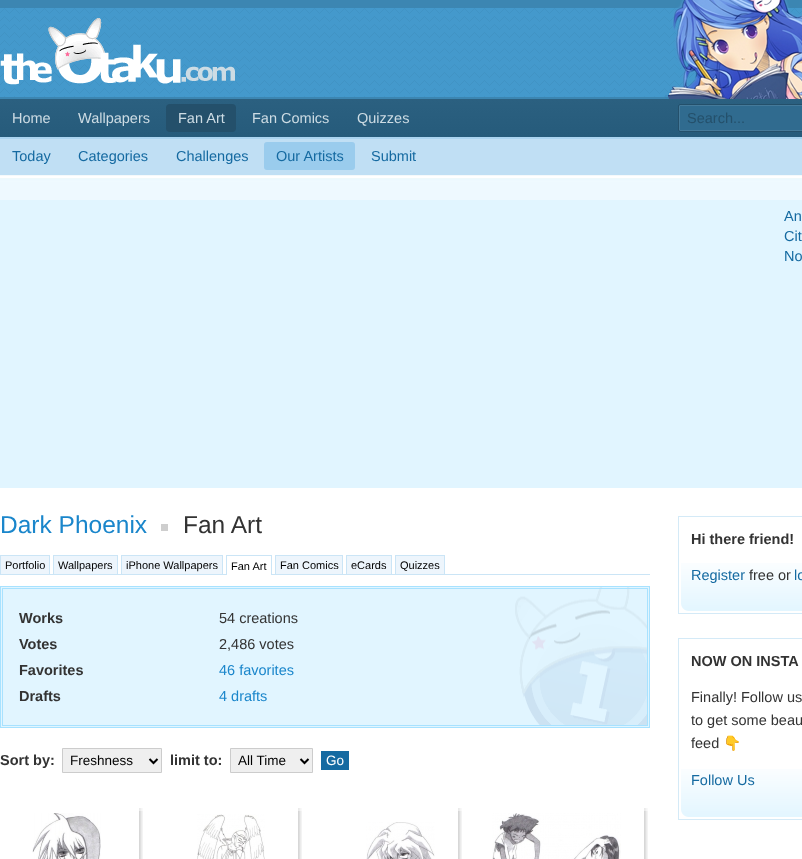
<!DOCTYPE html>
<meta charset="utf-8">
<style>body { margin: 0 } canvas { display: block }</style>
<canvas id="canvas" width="802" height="859"></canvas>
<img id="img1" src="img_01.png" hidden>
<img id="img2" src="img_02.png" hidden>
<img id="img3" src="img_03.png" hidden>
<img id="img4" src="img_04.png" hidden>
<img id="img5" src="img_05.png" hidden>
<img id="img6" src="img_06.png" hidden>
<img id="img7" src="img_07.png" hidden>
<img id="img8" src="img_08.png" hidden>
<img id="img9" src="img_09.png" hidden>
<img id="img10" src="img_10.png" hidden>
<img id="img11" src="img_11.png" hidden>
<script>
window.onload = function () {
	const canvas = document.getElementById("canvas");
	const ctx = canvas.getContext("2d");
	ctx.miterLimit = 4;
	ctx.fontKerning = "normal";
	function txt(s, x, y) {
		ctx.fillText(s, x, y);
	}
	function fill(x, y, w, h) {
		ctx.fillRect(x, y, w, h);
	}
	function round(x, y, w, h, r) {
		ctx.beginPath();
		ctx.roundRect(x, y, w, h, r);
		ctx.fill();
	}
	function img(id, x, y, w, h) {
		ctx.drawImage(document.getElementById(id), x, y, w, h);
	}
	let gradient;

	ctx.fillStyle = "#FFFFFF";
	fill(0, 0, 802, 859);
	ctx.fillStyle = "#4499CC";
	fill(0, 8, 802, 89);
	img("img1", 0, 8, 802, 89);
	ctx.fillStyle = "#3C86B2";
	fill(0, 0, 802, 8);
	img("img2", 0, 18, 235, 67);
	fill(0, 97, 669, 2);
	img("img3", 665, 0, 137, 99);
	gradient = ctx.createLinearGradient(401, 99, 401, 137);
	gradient.addColorStop(0, "#2B6080");
	gradient.addColorStop(1, "#265B7B");
	ctx.fillStyle = gradient;
	fill(0, 99, 802, 38);
	ctx.fillStyle = "#24506B";
	round(166, 104, 70, 28, 4);
	ctx.fillStyle = "#306B8F";
	ctx.beginPath();
	ctx.roundRect(678, 104, 124, 28, [2, 0, 0, 2]);
	ctx.fill();
	ctx.beginPath();
	ctx.roundRect(679.5, 105.5, 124, 25, 0.5);
	ctx.strokeStyle = "#457A9A";
	ctx.stroke();
	ctx.beginPath();
	ctx.roundRect(678.5, 104.5, 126, 27, 1.5);
	ctx.strokeStyle = "#24506B";
	ctx.stroke();
	ctx.fillStyle = "#C0DFF4";
	fill(0, 139, 802, 36);
	ctx.fillStyle = "#AAD4F0";
	fill(0, 137, 802, 2);
	ctx.fillStyle = "#F4F9FB";
	fill(0, 175, 802, 1);
	ctx.fillStyle = "#9ACCED";
	round(264, 142, 91, 28, 3);
	img("img4", 0, 178, 802, 22);
	ctx.fillStyle = "#E1F5FF";
	fill(0, 200, 802, 288);
	ctx.fillStyle = "#CECECE";
	fill(161, 524, 7, 7);
	ctx.fillStyle = "#CBE5F6";
	fill(0, 574, 650, 1);
	ctx.fillStyle = "#EDF5FC";
	fill(1, 556, 48, 18);
	ctx.fillStyle = "#CBE5F6";
	fill(0, 555, 50, 1);
	fill(49, 555, 1, 19);
	fill(0, 555, 1, 19);
	ctx.fillStyle = "#EDF5FC";
	fill(54, 556, 63, 18);
	ctx.fillStyle = "#CBE5F6";
	fill(53, 555, 65, 1);
	fill(117, 555, 1, 19);
	fill(53, 555, 1, 19);
	ctx.fillStyle = "#EDF5FC";
	fill(122, 556, 100, 18);
	ctx.fillStyle = "#CBE5F6";
	fill(121, 555, 102, 1);
	fill(222, 555, 1, 19);
	fill(121, 555, 1, 19);
	ctx.fillStyle = "#FFFFFF";
	fill(227, 574, 44, 1);
	ctx.fillStyle = "#CBE5F6";
	fill(226, 555, 46, 1);
	fill(271, 555, 1, 20);
	fill(226, 555, 1, 20);
	ctx.fillStyle = "#EDF5FC";
	fill(276, 556, 66, 18);
	ctx.fillStyle = "#CBE5F6";
	fill(275, 555, 68, 1);
	fill(342, 555, 1, 19);
	fill(275, 555, 1, 19);
	ctx.fillStyle = "#EDF5FC";
	fill(347, 556, 44, 18);
	ctx.fillStyle = "#CBE5F6";
	fill(346, 555, 46, 1);
	fill(391, 555, 1, 19);
	fill(346, 555, 1, 19);
	ctx.fillStyle = "#EDF5FC";
	fill(396, 556, 48, 18);
	ctx.fillStyle = "#CBE5F6";
	fill(395, 555, 50, 1);
	fill(444, 555, 1, 19);
	fill(395, 555, 1, 19);
	ctx.fillStyle = "#E1F5FF";
	fill(1, 587, 648, 140);
	img("img5", 515, 587, 132, 138);
	ctx.strokeStyle = "#A8E2FF";
	ctx.strokeRect(0.5, 586.5, 649, 141);
	ctx.strokeRect(2.5, 588.5, 645, 137);
	ctx.fillStyle = "#EFEFEF";
	ctx.beginPath();
	ctx.rect(62.5, 748.5, 99, 24);
	ctx.fill();
	ctx.strokeStyle = "#CCCCCC";
	ctx.stroke();
	ctx.beginPath();
	ctx.moveTo(149.5, 759);
	ctx.lineTo(153.5, 763);
	ctx.lineTo(157.5, 759);
	ctx.strokeStyle = "#000000";
	ctx.lineWidth = 2;
	ctx.stroke();
	ctx.beginPath();
	ctx.rect(230.5, 748.5, 82, 24);
	ctx.fill();
	ctx.strokeStyle = "#CCCCCC";
	ctx.lineWidth = 1;
	ctx.stroke();
	ctx.beginPath();
	ctx.moveTo(300.5, 759);
	ctx.lineTo(304.5, 763);
	ctx.lineTo(308.5, 759);
	ctx.strokeStyle = "#000000";
	ctx.lineWidth = 2;
	ctx.stroke();
	ctx.fillStyle = "#156AA1";
	fill(321, 751, 28, 19);
	img("img6", 139, 808, 4, 51);
	ctx.fillStyle = "rgba(255, 255, 255, 0.48)";
	fill(138, 808, 5, 3);
	img("img7", 32, 813, 69, 46);
	img("img6", 298, 808, 4, 51);
	fill(297, 808, 5, 3);
	img("img8", 197, 814, 68, 45);
	img("img6", 458, 808, 4, 51);
	fill(457, 808, 5, 3);
	img("img9", 366, 822, 69, 37);
	img("img6", 644, 808, 4, 51);
	fill(643, 808, 5, 3);
	img("img10", 492, 813, 129, 46);
	ctx.strokeStyle = "#D4EAF7";
	ctx.lineWidth = 1;
	ctx.strokeRect(678.5, 516.5, 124, 97);
	img("img11", 681, 563, 121, 48);
	ctx.strokeRect(678.5, 638.5, 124, 181);
	img("img11", 681, 769, 121, 48);
	ctx.font = "14.5px Liberation Sans";
	ctx.fillStyle = "#CDDCE4";
	txt("Home", 12, 123);
	txt("Wallpapers", 78, 123);
	txt("Fan Art", 178, 123);
	txt("Fan Comics", 252, 123);
	txt("Quizzes", 357, 123);
	ctx.fillStyle = "#24506B";
	txt("Search...", 687, 123);
	ctx.fillStyle = "#156AA1";
	txt("Today", 12, 161);
	txt("Categories", 78, 161);
	txt("Challenges", 176, 161);
	txt("Our Artists", 276, 161);
	txt("Submit", 371, 161);
	txt("An", 784, 221);
	txt("Cit", 784, 241);
	txt("No", 784, 261);
	ctx.font = "24.5px Liberation Sans";
	ctx.fillStyle = "#1A86CB";
	txt("Dark Phoenix", 0, 533);
	ctx.fillStyle = "#333333";
	txt("Fan Art", 183, 533);
	ctx.font = "11px Liberation Sans";
	ctx.fillStyle = "#000000";
	txt("Portfolio", 5, 569);
	txt("Wallpapers", 58, 569);
	txt("iPhone Wallpapers", 126, 569);
	txt("Fan Art", 231, 570);
	txt("Fan Comics", 280, 569);
	txt("eCards", 351, 569);
	txt("Quizzes", 400, 569);
	ctx.font = "bold 14.5px Liberation Sans";
	ctx.fillStyle = "#333333";
	txt("Works", 19, 623);
	ctx.font = "14.5px Liberation Sans";
	txt("54 creations", 219, 623);
	ctx.font = "bold 14.5px Liberation Sans";
	txt("Votes", 19, 649);
	ctx.font = "14.5px Liberation Sans";
	txt("2,486 votes", 219, 649);
	ctx.font = "bold 14.5px Liberation Sans";
	txt("Favorites", 19, 675);
	ctx.font = "14.5px Liberation Sans";
	ctx.fillStyle = "#1A86CB";
	txt("46 favorites", 219, 675);
	ctx.font = "bold 14.5px Liberation Sans";
	ctx.fillStyle = "#333333";
	txt("Drafts", 19, 701);
	ctx.font = "14.5px Liberation Sans";
	ctx.fillStyle = "#1A86CB";
	txt("4 drafts", 219, 701);
	ctx.font = "bold 14.5px Liberation Sans";
	ctx.fillStyle = "#333333";
	txt("Sort by:", 0, 765);
	ctx.font = "13.5px Liberation Sans";
	ctx.fillStyle = "#000000";
	txt("Freshness", 70, 765);
	ctx.font = "bold 14.5px Liberation Sans";
	ctx.fillStyle = "#333333";
	txt("limit to:", 170, 765);
	ctx.font = "13.5px Liberation Sans";
	ctx.fillStyle = "#000000";
	txt("All Time", 238, 765);
	ctx.fillStyle = "#FFFFFF";
	txt("Go", 326, 765);
	ctx.font = "bold 14.5px Liberation Sans";
	ctx.fillStyle = "#333333";
	txt("Hi there friend!", 691, 544);
	ctx.font = "14.5px Liberation Sans";
	ctx.fillStyle = "#156AA1";
	txt("Register", 691, 580);
	ctx.fillStyle = "#333333";
	txt("free or", 749, 580);
	ctx.fillStyle = "#156AA1";
	txt("lo", 794, 580);
	ctx.font = "bold 14.5px Liberation Sans";
	ctx.fillStyle = "#333333";
	txt("NOW ON INSTA", 691, 666);
	ctx.font = "14.5px Liberation Sans";
	txt("Finally! Follow us", 691, 702);
	txt("to get some beau", 691, 725);
	txt("feed", 691, 748);
	ctx.font = "14.5px Noto Color Emoji";
	txt("👇", 723, 748);
	ctx.font = "14.5px Liberation Sans";
	ctx.fillStyle = "#156AA1";
	txt("Follow Us", 691, 785);
};
</script>
